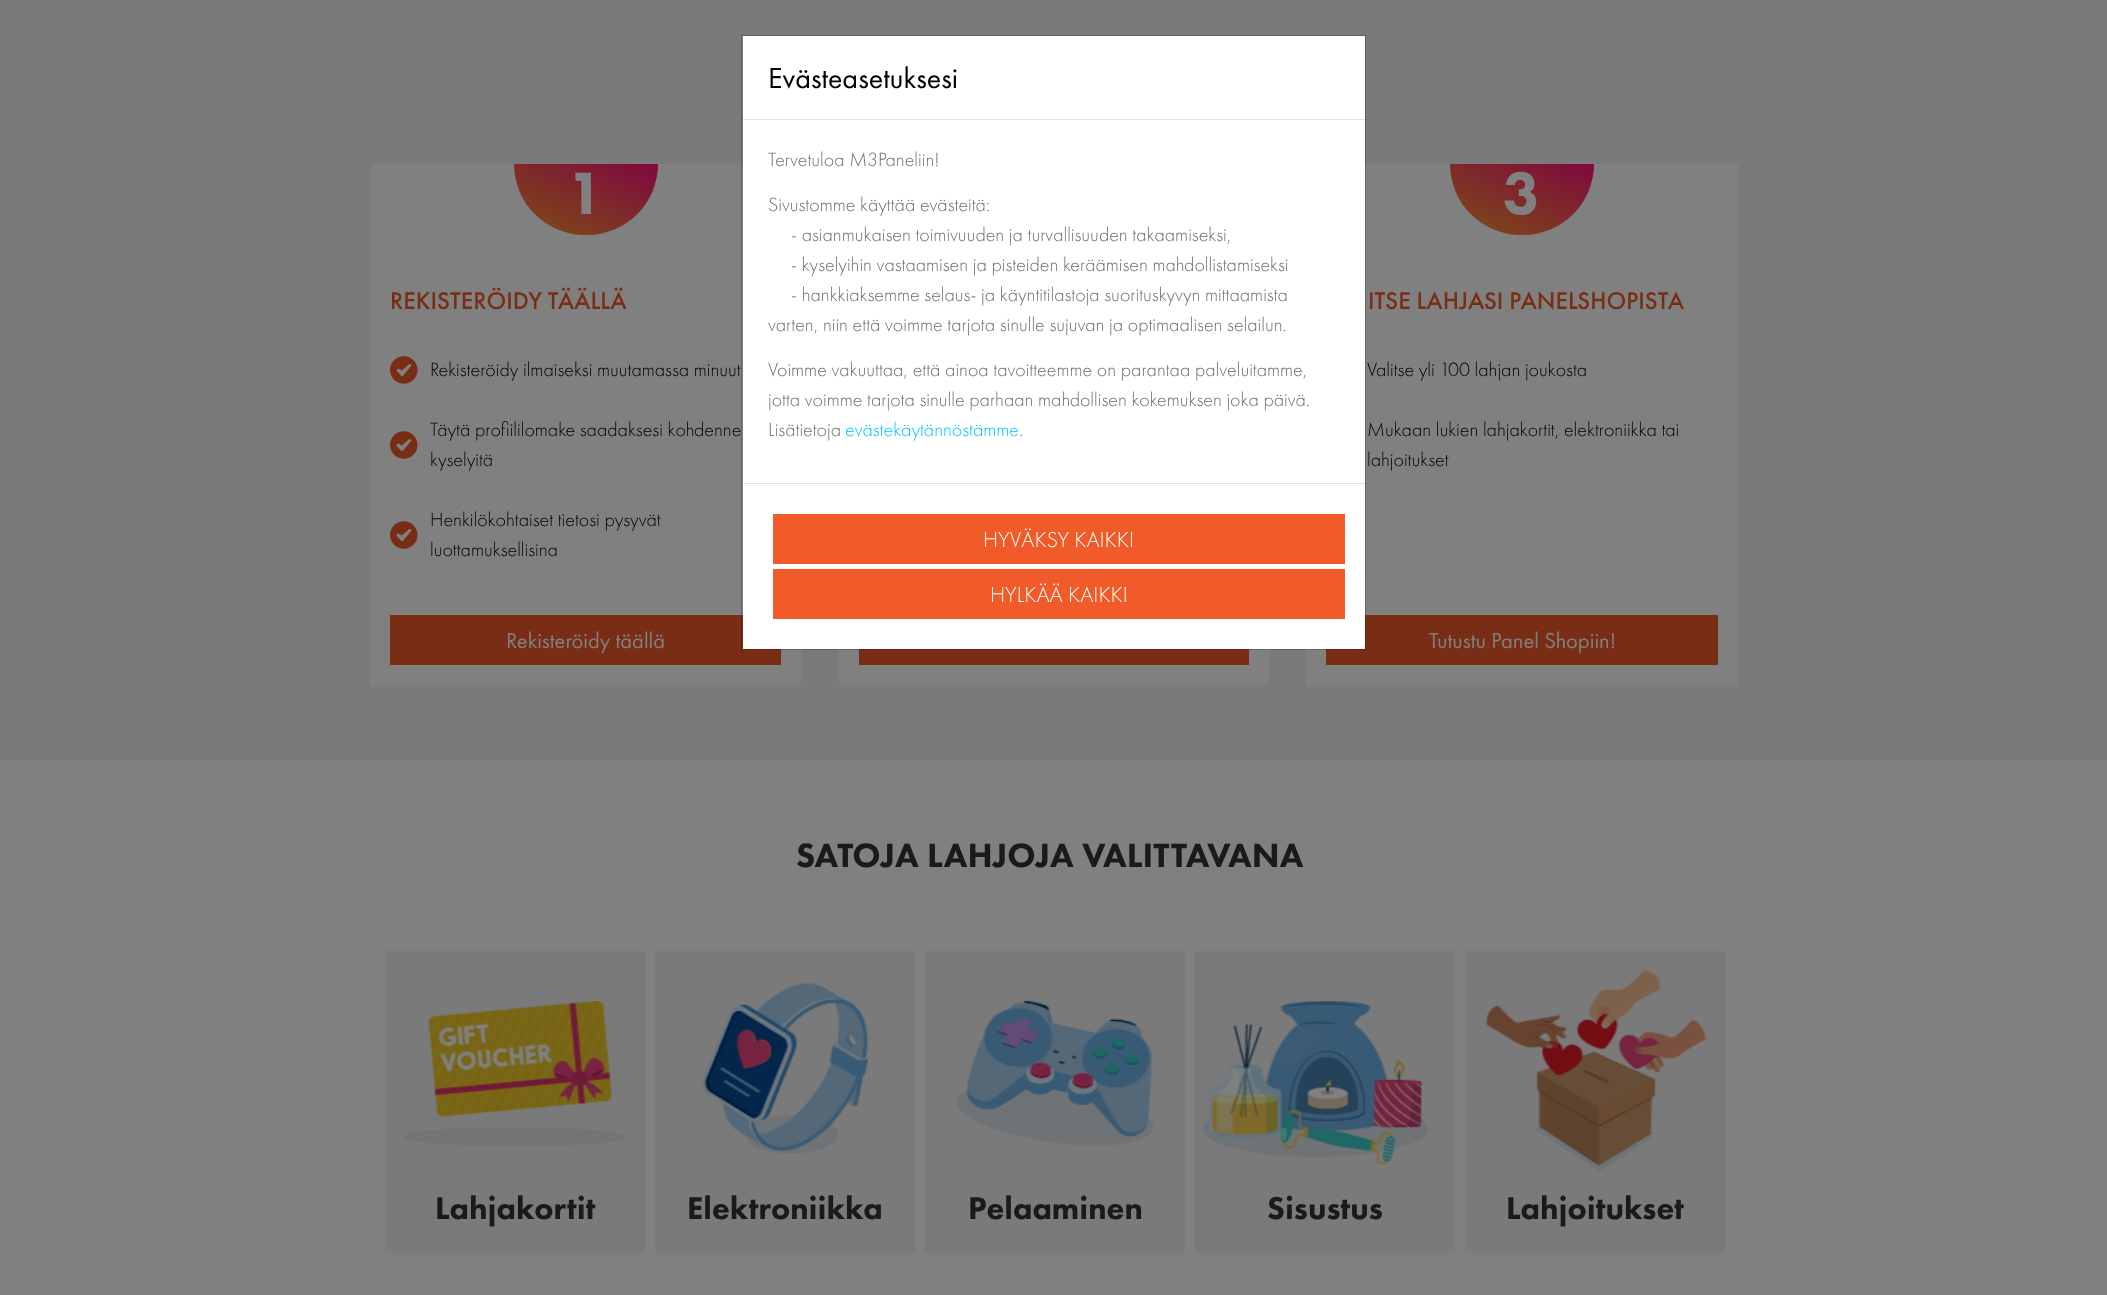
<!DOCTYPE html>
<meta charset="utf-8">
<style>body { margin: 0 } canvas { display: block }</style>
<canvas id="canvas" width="2107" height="1295"></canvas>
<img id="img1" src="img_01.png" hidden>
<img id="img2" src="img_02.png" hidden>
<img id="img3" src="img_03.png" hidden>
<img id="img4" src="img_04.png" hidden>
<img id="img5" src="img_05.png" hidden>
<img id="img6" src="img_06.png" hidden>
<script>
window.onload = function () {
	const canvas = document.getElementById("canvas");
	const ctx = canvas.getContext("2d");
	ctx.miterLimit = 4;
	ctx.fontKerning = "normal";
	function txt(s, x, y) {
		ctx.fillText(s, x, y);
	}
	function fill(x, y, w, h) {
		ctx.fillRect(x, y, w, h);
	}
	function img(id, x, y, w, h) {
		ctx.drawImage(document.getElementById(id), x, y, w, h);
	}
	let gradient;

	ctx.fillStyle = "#808080";
	fill(0, 0, 2107, 1295);
	ctx.fillStyle = "#7A7A7A";
	fill(0, 0, 2107, 760);
	ctx.fillStyle = "#808080";
	fill(370, 164, 431, 521);
	ctx.fillStyle = "#792D15";
	fill(390, 615, 391, 50);
	ctx.fillStyle = "#808080";
	fill(1306, 164, 432, 521);
	ctx.fillStyle = "#792D15";
	fill(1326, 615, 392, 50);
	ctx.fillStyle = "#FFFFFF";
	fill(743, 36, 622, 613);
	gradient = ctx.createLinearGradient(560, 256, 611, 143);
	gradient.addColorStop(0, "#7C4E15");
	gradient.addColorStop(1, "#80083E");
	ctx.fillStyle = gradient;
	ctx.beginPath();
	ctx.roundRect(514, 164, 144, 71, [0, 0, 71, 71]);
	ctx.fill();
	img("img1", 390, 356, 28, 28);
	img("img1", 390, 431, 28, 28);
	img("img1", 390, 521, 28, 28);
	gradient = ctx.createLinearGradient(1497, 256, 1547, 143);
	gradient.addColorStop(0, "#7C4E15");
	gradient.addColorStop(1, "#80083E");
	ctx.fillStyle = gradient;
	ctx.beginPath();
	ctx.roundRect(1450, 164, 144, 71, [0, 0, 71, 71]);
	ctx.fill();
	ctx.fillStyle = "#808080";
	fill(839, 649, 430, 36);
	ctx.fillStyle = "#792D15";
	fill(859, 649, 390, 16);
	ctx.fillStyle = "#7A7A7A";
	fill(385, 951, 260, 302);
	img("img2", 403, 1001, 224, 145);
	fill(655, 951, 260, 302);
	img("img3", 702, 983, 167, 171);
	fill(925, 951, 260, 302);
	img("img4", 956, 1001, 198, 145);
	fill(1195, 951, 260, 302);
	img("img5", 1203, 1001, 225, 164);
	fill(1465, 951, 260, 302);
	img("img6", 1485, 971, 221, 200);
	ctx.font = "900 62px Futura PT";
	ctx.fillStyle = "#808080";
	txt("1", 567, 214);
	ctx.font = "500 25px Futura PT";
	ctx.fillStyle = "#792D15";
	txt("REKISTERÖIDY TÄÄLLÄ", 390, 309);
	ctx.font = "300 20px Futura PT";
	ctx.fillStyle = "#000000";
	txt("Rekisteröidy ilmaiseksi muutamassa minuut", 430, 376);
	txt("Täytä profiililomake saadaksesi kohdenne", 430, 436);
	ctx.strokeStyle = "rgba(0, 0, 0, 0.2)";
	ctx.strokeRect(741.5, 35.5, 624, 614);
	ctx.fillStyle = "#6E6E6E";
	txt(".", 1019, 436);
	ctx.fillStyle = "#00C6FF";
	txt("evästekäytännöstämme", 845, 436);
	ctx.fillStyle = "#6E6E6E";
	txt("Lisätietoja", 768, 436);
	txt("jotta voimme tarjota sinulle parhaan mahdollisen kokemuksen joka päivä.", 768, 406);
	txt("Voimme vakuuttaa, että ainoa tavoitteemme on parantaa palveluitamme,", 768, 376);
	txt("varten, niin että voimme tarjota sinulle sujuvan ja optimaalisen selailun.", 768, 331);
	txt("- hankkiaksemme selaus- ja käyntitilastoja suorituskyvyn mittaamista", 791, 301);
	txt("- kyselyihin vastaamisen ja pisteiden keräämisen mahdollistamiseksi", 791, 271);
	txt("- asianmukaisen toimivuuden ja turvallisuuden takaamiseksi,", 791, 241);
	txt("Sivustomme käyttää evästeitä:", 768, 211);
	txt("Tervetuloa M3Paneliin!", 768, 166);
	ctx.font = "30px Futura PT";
	ctx.fillStyle = "#000000";
	txt("Evästeasetuksesi", 768, 88);
	ctx.fillStyle = "#DEE2E6";
	fill(743, 119, 622, 1);
	ctx.fillStyle = "#F15A29";
	fill(773, 569, 572, 50);
	ctx.font = "300 22.5px Futura PT";
	ctx.fillStyle = "#FFFFFF";
	txt("HYLKÄÄ KAIKKI", 990, 602);
	ctx.fillStyle = "#F15A29";
	fill(773, 514, 572, 50);
	ctx.fillStyle = "#FFFFFF";
	txt("HYVÄKSY KAIKKI", 983, 547);
	ctx.fillStyle = "#DEE2E6";
	fill(743, 483, 622, 1);
	ctx.font = "300 20px Futura PT";
	ctx.fillStyle = "#000000";
	txt("kyselyitä", 430, 466);
	txt("Henkilökohtaiset tietosi pysyvät", 430, 526);
	txt("luottamuksellisina", 430, 556);
	ctx.font = "22.5px Futura PT";
	ctx.fillStyle = "#808080";
	txt("Rekisteröidy täällä", 506, 648);
	ctx.font = "900 62px Futura PT";
	txt("3", 1503, 214);
	ctx.font = "500 25px Futura PT";
	ctx.fillStyle = "#792D15";
	txt("ITSE LAHJASI PANELSHOPISTA", 1368, 309);
	ctx.font = "300 20px Futura PT";
	ctx.fillStyle = "#000000";
	txt("Valitse yli 100 lahjan joukosta", 1367, 376);
	txt("Mukaan lukien lahjakortit, elektroniikka tai", 1367, 436);
	txt("lahjoitukset", 1367, 466);
	ctx.font = "22.5px Futura PT";
	ctx.fillStyle = "#808080";
	txt("Tutustu Panel Shopiin!", 1429, 648);
	ctx.font = "900 35px Futura PT";
	ctx.fillStyle = "#1A1A1A";
	txt("SATOJA LAHJOJA VALITTAVANA", 796, 867);
	ctx.font = "900 32.5px Futura PT";
	txt("Lahjakortit", 435, 1219);
	txt("Elektroniikka", 687, 1219);
	txt("Pelaaminen", 968, 1219);
	txt("Sisustus", 1267, 1219);
	txt("Lahjoitukset", 1506, 1219);
};
</script>
